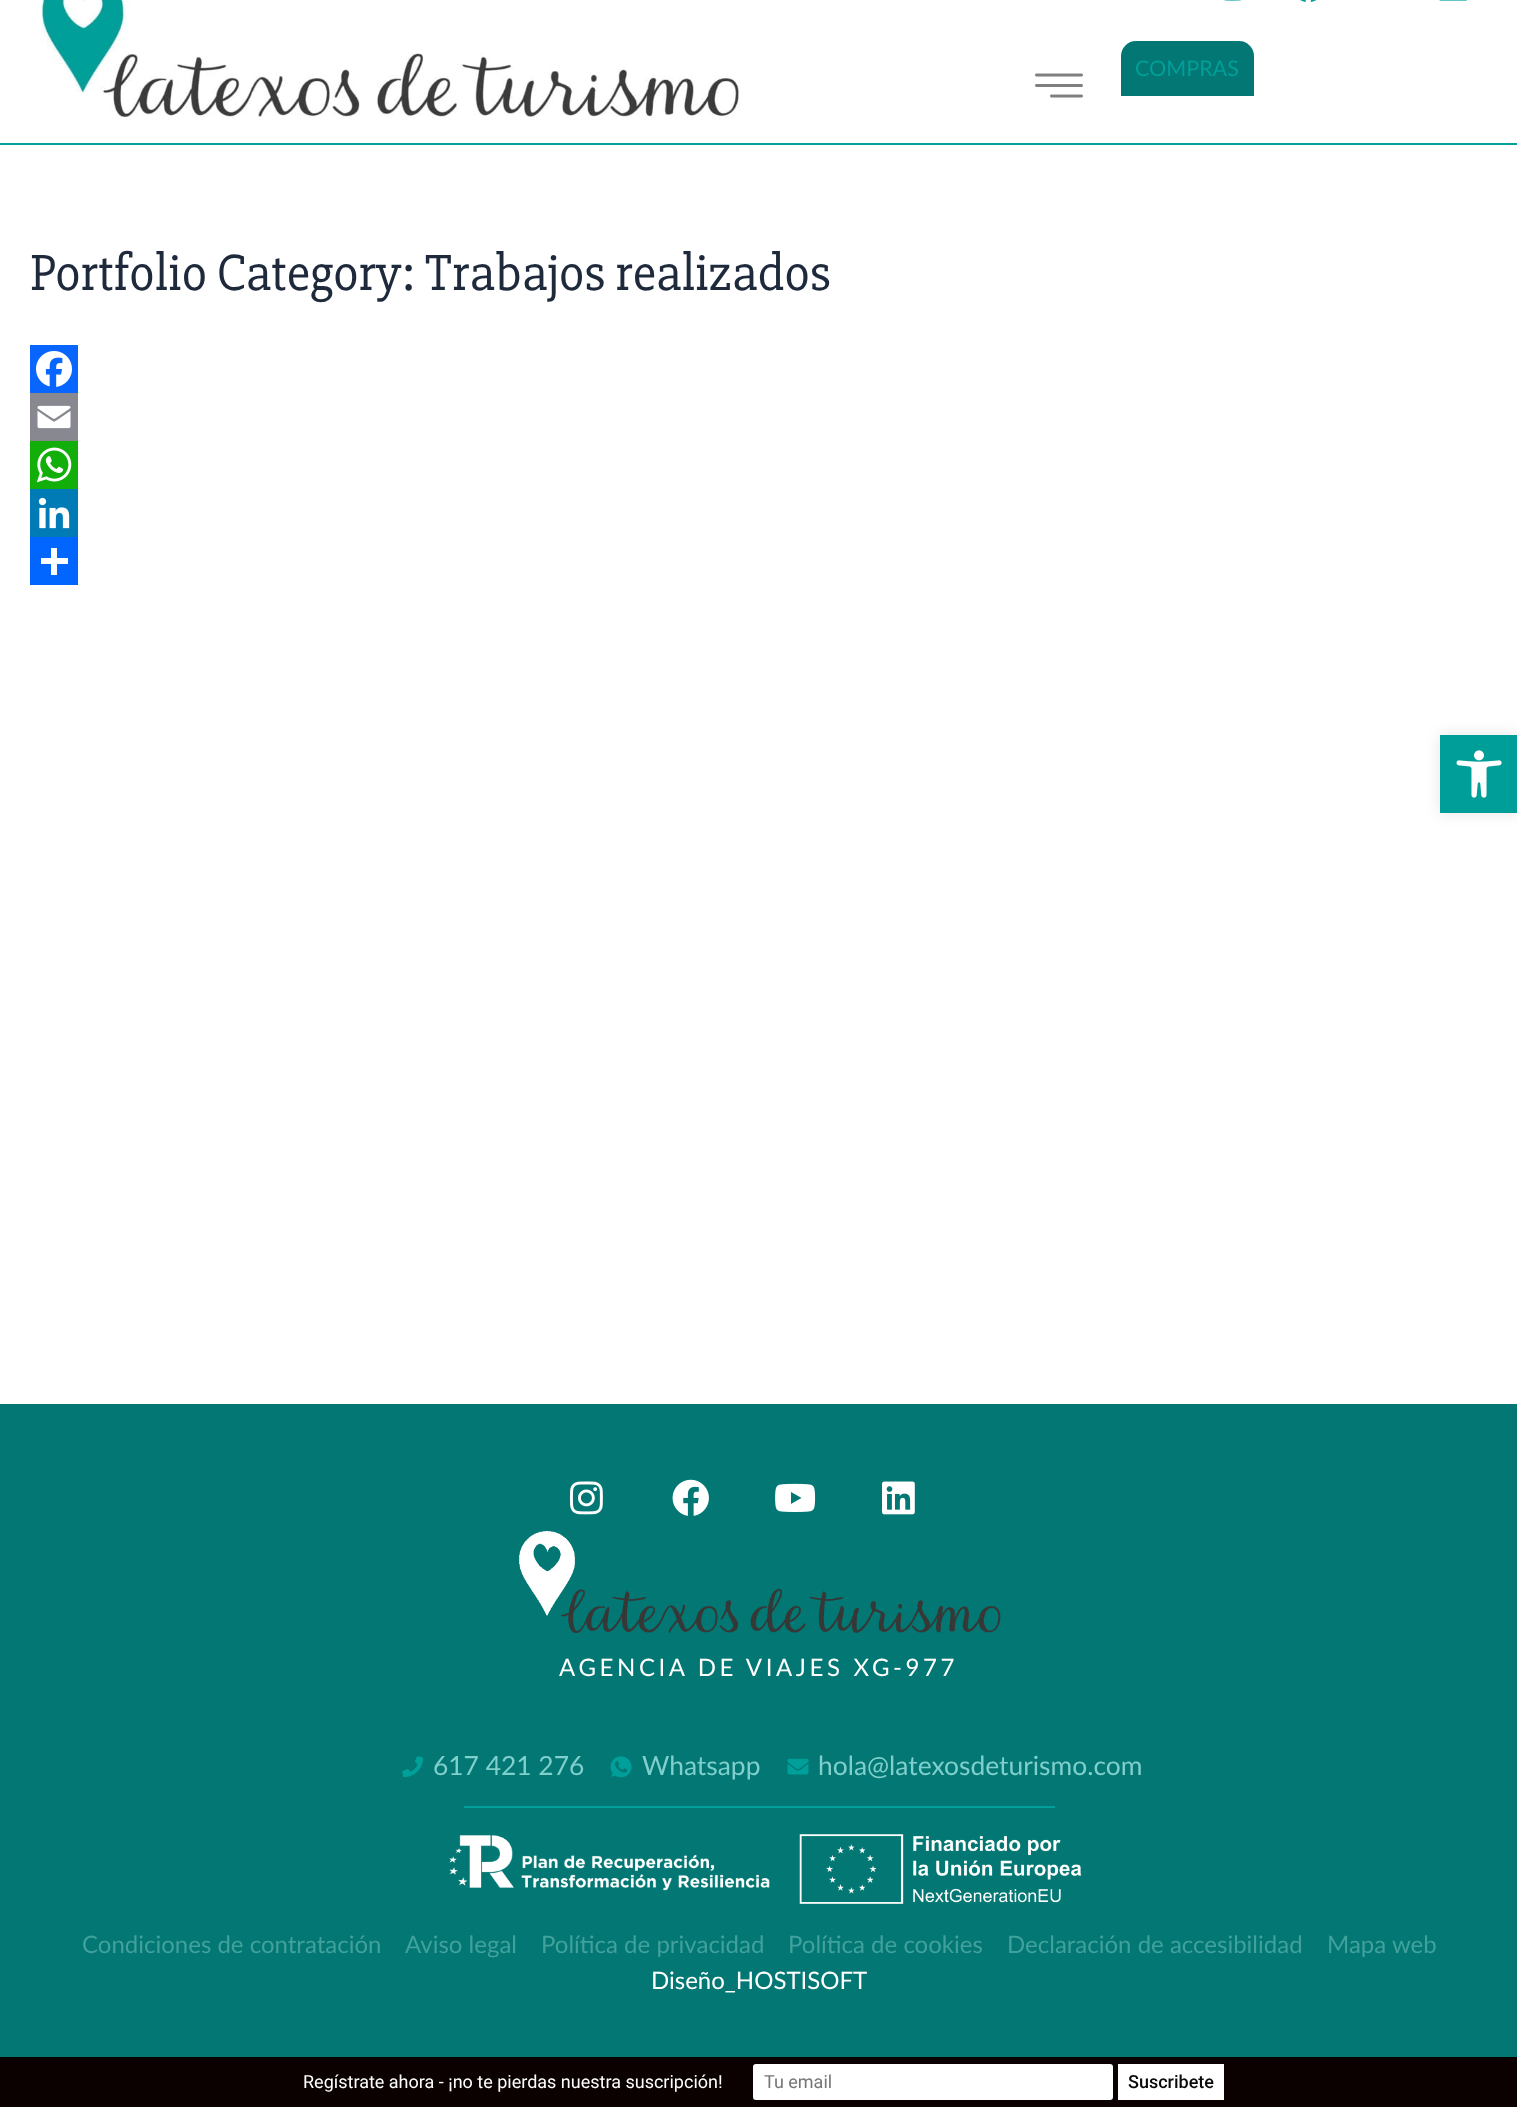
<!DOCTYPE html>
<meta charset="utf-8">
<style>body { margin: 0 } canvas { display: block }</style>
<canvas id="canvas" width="1517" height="2107"></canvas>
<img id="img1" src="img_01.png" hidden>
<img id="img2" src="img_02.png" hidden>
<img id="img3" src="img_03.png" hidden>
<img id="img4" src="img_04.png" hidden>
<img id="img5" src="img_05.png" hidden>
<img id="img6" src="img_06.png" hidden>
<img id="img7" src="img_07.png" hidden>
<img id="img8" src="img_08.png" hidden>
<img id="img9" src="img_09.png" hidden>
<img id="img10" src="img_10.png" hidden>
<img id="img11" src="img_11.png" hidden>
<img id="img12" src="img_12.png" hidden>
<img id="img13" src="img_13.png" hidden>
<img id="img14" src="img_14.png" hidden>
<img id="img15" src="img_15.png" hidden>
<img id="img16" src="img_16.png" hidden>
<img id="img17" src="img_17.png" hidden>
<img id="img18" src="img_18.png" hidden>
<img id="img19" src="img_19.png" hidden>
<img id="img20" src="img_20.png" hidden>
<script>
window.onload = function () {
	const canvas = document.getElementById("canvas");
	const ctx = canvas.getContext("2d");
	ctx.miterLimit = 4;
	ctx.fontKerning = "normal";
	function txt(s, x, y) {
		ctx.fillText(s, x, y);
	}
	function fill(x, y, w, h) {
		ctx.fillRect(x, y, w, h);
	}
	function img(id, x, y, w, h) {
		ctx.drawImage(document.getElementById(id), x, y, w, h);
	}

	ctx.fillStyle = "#FFFFFF";
	fill(0, 0, 1517, 2107);
	ctx.fillStyle = "#009F9A";
	fill(0, 143, 1517, 2);
	img("img1", 41, 0, 700, 121);
	img("img2", 1224, 0, 18, 1);
	img("img3", 1300, 0, 17, 2);
	img("img4", 1439, 0, 29, 1);
	ctx.fillStyle = "#027773";
	ctx.beginPath();
	ctx.roundRect(1121, 41, 133, 55, [15, 15, 0, 0]);
	ctx.fill();
	img("img5", 1035, 73, 48, 25);
	ctx.fillStyle = "#0866FF";
	fill(30, 345, 48, 48);
	img("img6", 36, 351, 36, 36);
	ctx.fillStyle = "#888990";
	fill(30, 393, 48, 48);
	img("img7", 37, 405, 34, 24);
	ctx.fillStyle = "#12AF0A";
	fill(30, 441, 48, 48);
	img("img8", 36, 447, 36, 36);
	ctx.fillStyle = "#007BB5";
	fill(30, 489, 48, 48);
	img("img9", 38, 497, 32, 32);
	ctx.fillStyle = "#0166FF";
	fill(30, 537, 48, 48);
	ctx.fillStyle = "#FFFFFF";
	fill(51, 548, 6, 27);
	fill(41, 558, 27, 6);
	ctx.fillStyle = "#027773";
	fill(0, 1404, 1517, 653);
	img("img10", 570, 1481, 33, 34);
	img("img11", 672, 1479, 37, 37);
	img("img12", 775, 1483, 41, 29);
	img("img13", 882, 1481, 33, 34);
	img("img14", 519, 1531, 482, 102);
	img("img15", 402, 1756, 21, 22);
	img("img16", 610, 1756, 22, 22);
	img("img17", 787, 1758, 22, 17);
	ctx.fillStyle = "#009F9A";
	fill(464, 1806, 591, 2);
	img("img18", 449, 1835, 321, 56);
	img("img19", 799, 1834, 283, 70);
	ctx.fillStyle = "rgba(0, 0, 0, 0.1)";
	ctx.filter = "blur(7.5px)";
	ctx.beginPath();
	ctx.rect(1440, 735, 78, 78);
	ctx.fill();
	ctx.filter = "none";
	ctx.fillStyle = "#009E99";
	fill(1440, 735, 77, 78);
	img("img20", 1456, 750, 46, 48);
	ctx.fillStyle = "#0A0100";
	fill(0, 2057, 1517, 50);
	ctx.fillStyle = "#FFFFFF";
	ctx.beginPath();
	ctx.roundRect(754, 2065, 358, 34, 2);
	ctx.fill();
	ctx.strokeStyle = "#FFFFFF";
	ctx.lineWidth = 2;
	ctx.stroke();
	fill(1118, 2064, 106, 36);
	ctx.font = "21.5px Lato";
	ctx.fillStyle = "#009F9A";
	txt("COMPRAS", 1135, 76);
	ctx.font = "52.5px 'Slabo 27px'";
	ctx.fillStyle = "#1E293B";
	txt("Portfolio Category: Trabajos realizados", 30, 290);
	ctx.letterSpacing = "3.6px";
	ctx.font = "24px Lato";
	ctx.fillStyle = "#FFFFFF";
	txt("AGENCIA DE VIAJES XG-977", 559, 1676);
	ctx.letterSpacing = "0px";
	ctx.font = "26.4px Lato";
	ctx.fillStyle = "#7FCFCC";
	txt("617 421 276", 433, 1775);
	txt("Whatsapp", 642, 1775);
	txt("hola@latexosdeturismo.com", 818, 1775);
	ctx.font = "24px Lato";
	ctx.fillStyle = "#41A19D";
	txt("Condiciones de contratación", 82, 1953);
	txt("Aviso legal", 405, 1953);
	txt("Política de privacidad", 541, 1953);
	txt("Política de cookies", 788, 1953);
	txt("Declaración de accesibilidad", 1007, 1953);
	txt("Mapa web", 1327, 1953);
	ctx.fillStyle = "#FFFFFF";
	txt("Diseño_HOSTISOFT", 651, 1989);
	ctx.font = "18px Roboto";
	txt("Regístrate ahora - ¡no te pierdas nuestra suscripción!", 303, 2088);
	ctx.fillStyle = "#757575";
	txt("Tu email", 764, 2088);
	ctx.font = "500 18px Roboto";
	ctx.fillStyle = "#0A0A0A";
	txt("Suscribete", 1128, 2088);
};
</script>
